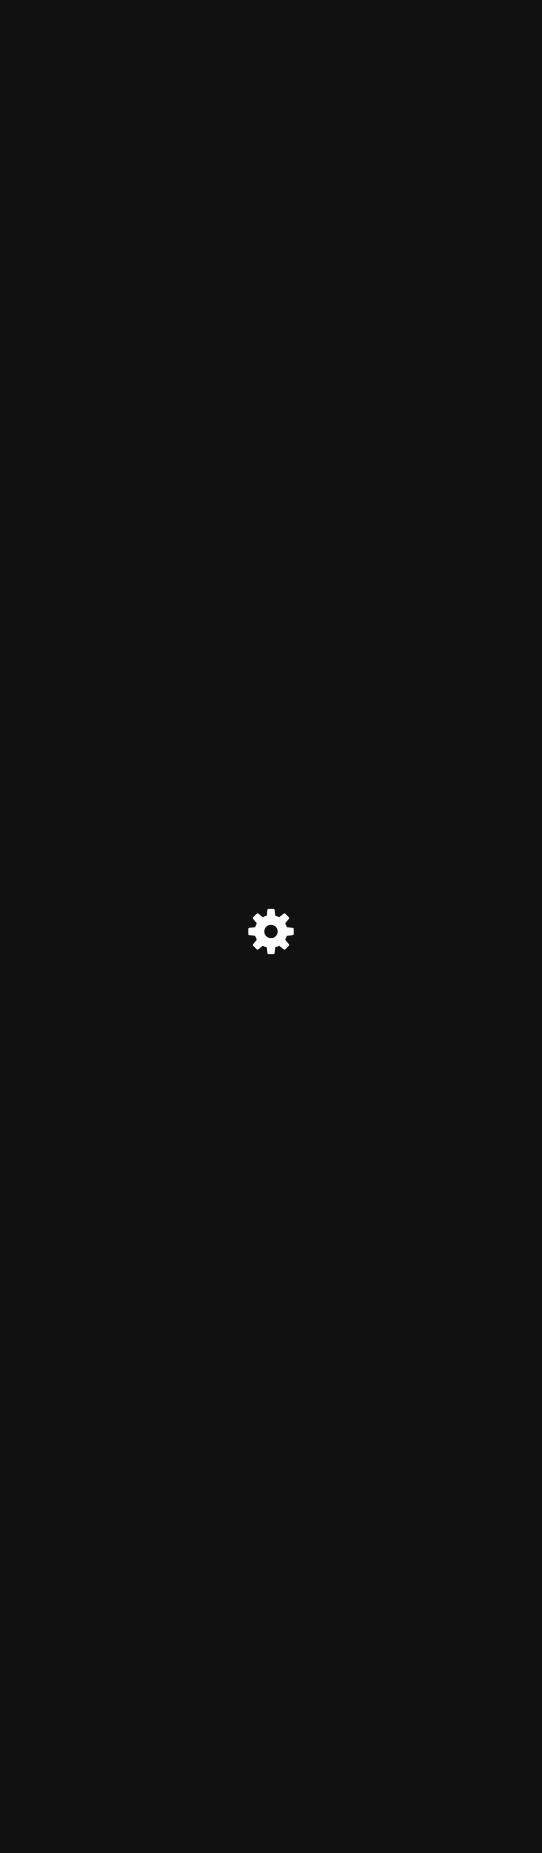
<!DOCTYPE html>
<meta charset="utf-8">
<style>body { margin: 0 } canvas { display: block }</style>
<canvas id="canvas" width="542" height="1853"></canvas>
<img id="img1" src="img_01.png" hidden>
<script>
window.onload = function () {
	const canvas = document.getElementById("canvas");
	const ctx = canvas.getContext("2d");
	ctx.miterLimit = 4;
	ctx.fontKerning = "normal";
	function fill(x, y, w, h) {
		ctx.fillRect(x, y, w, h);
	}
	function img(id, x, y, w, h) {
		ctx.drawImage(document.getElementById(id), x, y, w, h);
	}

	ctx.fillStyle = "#111111";
	fill(0, 0, 542, 1853);
	img("img1", 248, 908, 46, 47);
};
</script>
